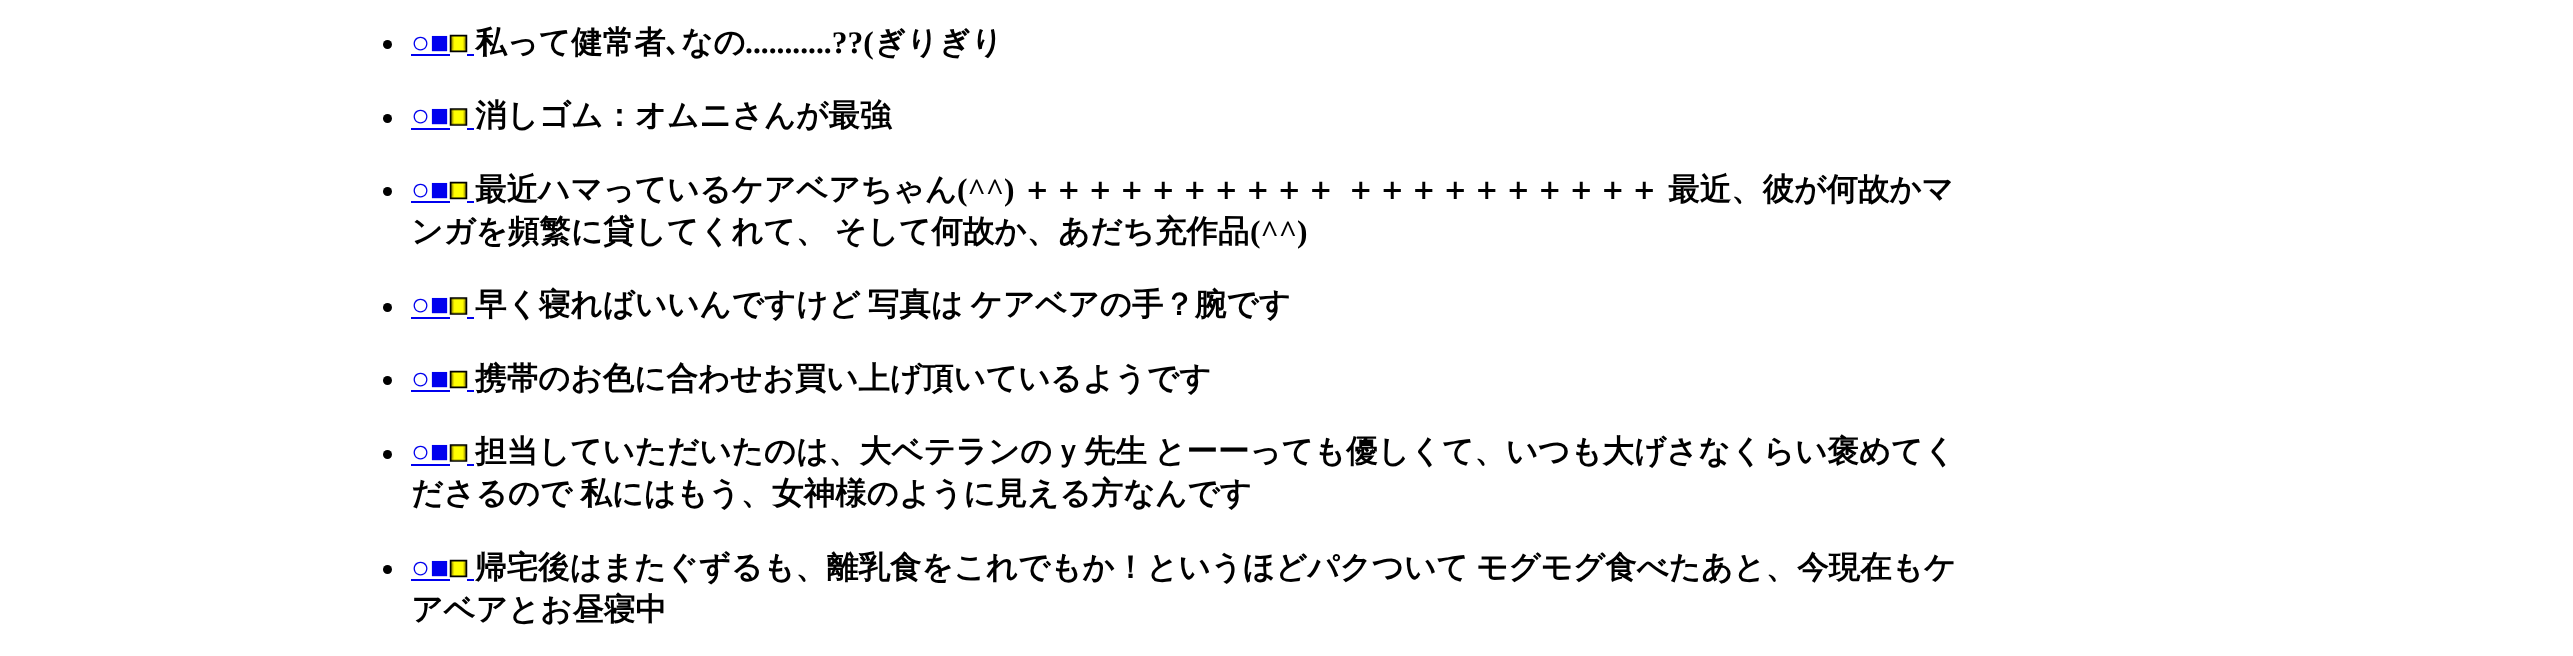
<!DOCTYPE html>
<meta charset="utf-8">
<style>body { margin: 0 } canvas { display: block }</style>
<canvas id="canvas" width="2573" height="656"></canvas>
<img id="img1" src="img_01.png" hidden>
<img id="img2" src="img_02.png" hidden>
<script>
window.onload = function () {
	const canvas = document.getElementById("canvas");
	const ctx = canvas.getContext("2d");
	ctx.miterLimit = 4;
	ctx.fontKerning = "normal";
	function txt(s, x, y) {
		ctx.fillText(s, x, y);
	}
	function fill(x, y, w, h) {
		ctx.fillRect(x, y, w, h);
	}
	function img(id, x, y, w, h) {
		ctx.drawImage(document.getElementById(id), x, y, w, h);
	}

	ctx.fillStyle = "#FFFFFF";
	fill(0, 0, 2573, 656);
	ctx.fillStyle = "#000000";
	ctx.beginPath();
	ctx.arc(387.5, 44.5, 4.5, 0, Math.PI * 2);
	ctx.fill();
	ctx.fillStyle = "#0000EE";
	fill(411, 54, 39, 2);
	img("img1", 449, 34, 19, 19);
	fill(467, 54, 7, 2);
	ctx.fillStyle = "#000000";
	ctx.beginPath();
	ctx.arc(387.5, 118.5, 4.5, 0, Math.PI * 2);
	ctx.fill();
	ctx.fillStyle = "#0000EE";
	fill(411, 128, 39, 2);
	img("img2", 449, 108, 19, 18);
	fill(467, 128, 7, 2);
	ctx.fillStyle = "#000000";
	ctx.beginPath();
	ctx.arc(387.5, 191.5, 4.5, 0, Math.PI * 2);
	ctx.fill();
	ctx.fillStyle = "#0000EE";
	fill(411, 201, 39, 2);
	img("img1", 449, 181, 19, 19);
	fill(467, 201, 7, 2);
	ctx.fillStyle = "#000000";
	ctx.beginPath();
	ctx.arc(387.5, 307.5, 4.5, 0, Math.PI * 2);
	ctx.fill();
	ctx.fillStyle = "#0000EE";
	fill(411, 317, 39, 2);
	img("img2", 449, 297, 19, 18);
	fill(467, 317, 7, 2);
	ctx.fillStyle = "#000000";
	ctx.beginPath();
	ctx.arc(387.5, 380.5, 4.5, 0, Math.PI * 2);
	ctx.fill();
	ctx.fillStyle = "#0000EE";
	fill(411, 390, 39, 2);
	img("img1", 449, 370, 19, 19);
	fill(467, 390, 7, 2);
	ctx.fillStyle = "#000000";
	ctx.beginPath();
	ctx.arc(387.5, 454.5, 4.5, 0, Math.PI * 2);
	ctx.fill();
	ctx.fillStyle = "#0000EE";
	fill(411, 464, 39, 2);
	img("img2", 449, 444, 19, 18);
	fill(467, 464, 7, 2);
	ctx.fillStyle = "#000000";
	ctx.beginPath();
	ctx.arc(387.5, 569.5, 4.5, 0, Math.PI * 2);
	ctx.fill();
	ctx.fillStyle = "#0000EE";
	fill(411, 579, 39, 2);
	img("img1", 449, 559, 19, 19);
	fill(467, 579, 7, 2);
	ctx.font = "bold 31.5px Liberation Serif";
	txt("○■", 411, 53);
	ctx.font = "bold 31.5px WenQuanYi Zen Hei";
	ctx.fillStyle = "#000000";
	txt("私って健常者", 475, 53);
	txt("なの", 681, 53);
	ctx.font = "bold 31.5px Liberation Serif";
	txt("...........??(", 745, 53);
	ctx.font = "bold 31.5px WenQuanYi Zen Hei";
	txt("ぎりぎり", 874, 53);
	ctx.font = "bold 31.5px IPAPGothic";
	txt("､", 665, 53);
	ctx.font = "bold 31.5px Liberation Serif";
	ctx.fillStyle = "#0000EE";
	txt("○■", 411, 126);
	ctx.font = "bold 31.5px WenQuanYi Zen Hei";
	ctx.fillStyle = "#000000";
	txt("消しゴム：オムニさんが最強", 475, 126);
	ctx.font = "bold 31.5px Liberation Serif";
	ctx.fillStyle = "#0000EE";
	txt("○■", 411, 200);
	ctx.font = "bold 31.5px WenQuanYi Zen Hei";
	ctx.fillStyle = "#000000";
	txt("最近ハマっているケアベアちゃん", 475, 200);
	ctx.font = "bold 31.5px Liberation Serif";
	txt("(^^)", 957, 200);
	ctx.wordSpacing = "-1px";
	ctx.font = "bold 31.5px WenQuanYi Zen Hei";
	txt("＋＋＋＋＋＋＋＋＋＋ ＋＋＋＋＋＋＋＋＋＋ 最近、彼が何故かマ", 1021, 200);
	ctx.wordSpacing = "-2px";
	txt("ンガを頻繁に貸してくれて、 そして何故か、あだち充作品", 411, 242);
	ctx.wordSpacing = "0px";
	ctx.font = "bold 31.5px Liberation Serif";
	txt("(^^)", 1250, 242);
	ctx.fillStyle = "#0000EE";
	txt("○■", 411, 315);
	ctx.wordSpacing = "-2px";
	ctx.font = "bold 31.5px WenQuanYi Zen Hei";
	ctx.fillStyle = "#000000";
	txt("早く寝ればいいんですけど 写真は ケアベアの手？腕です", 475, 315);
	ctx.wordSpacing = "0px";
	ctx.font = "bold 31.5px Liberation Serif";
	ctx.fillStyle = "#0000EE";
	txt("○■", 411, 389);
	ctx.font = "bold 31.5px WenQuanYi Zen Hei";
	ctx.fillStyle = "#000000";
	txt("携帯のお色に合わせお買い上げ頂いているようです", 475, 389);
	ctx.font = "bold 31.5px Liberation Serif";
	ctx.fillStyle = "#0000EE";
	txt("○■", 411, 462);
	ctx.font = "bold 31.5px WenQuanYi Zen Hei";
	ctx.fillStyle = "#000000";
	txt("担当していただいたのは、大ベテランのｙ先生", 475, 462);
	txt("とーーっても優しくて、いつも大げさなくらい褒めてく", 1154, 462);
	txt("ださるので", 411, 504);
	txt("私にはもう、女神様のように見える方なんです", 580, 504);
	ctx.font = "bold 31.5px Liberation Serif";
	ctx.fillStyle = "#0000EE";
	txt("○■", 411, 578);
	ctx.font = "bold 31.5px WenQuanYi Zen Hei";
	ctx.fillStyle = "#000000";
	txt("帰宅後はまたぐずるも、離乳食をこれでもか！というほどパクついて", 475, 578);
	txt("モグモグ食べたあと、今現在もケ", 1476, 578);
	txt("アベアとお昼寝中", 411, 620);
};
</script>
